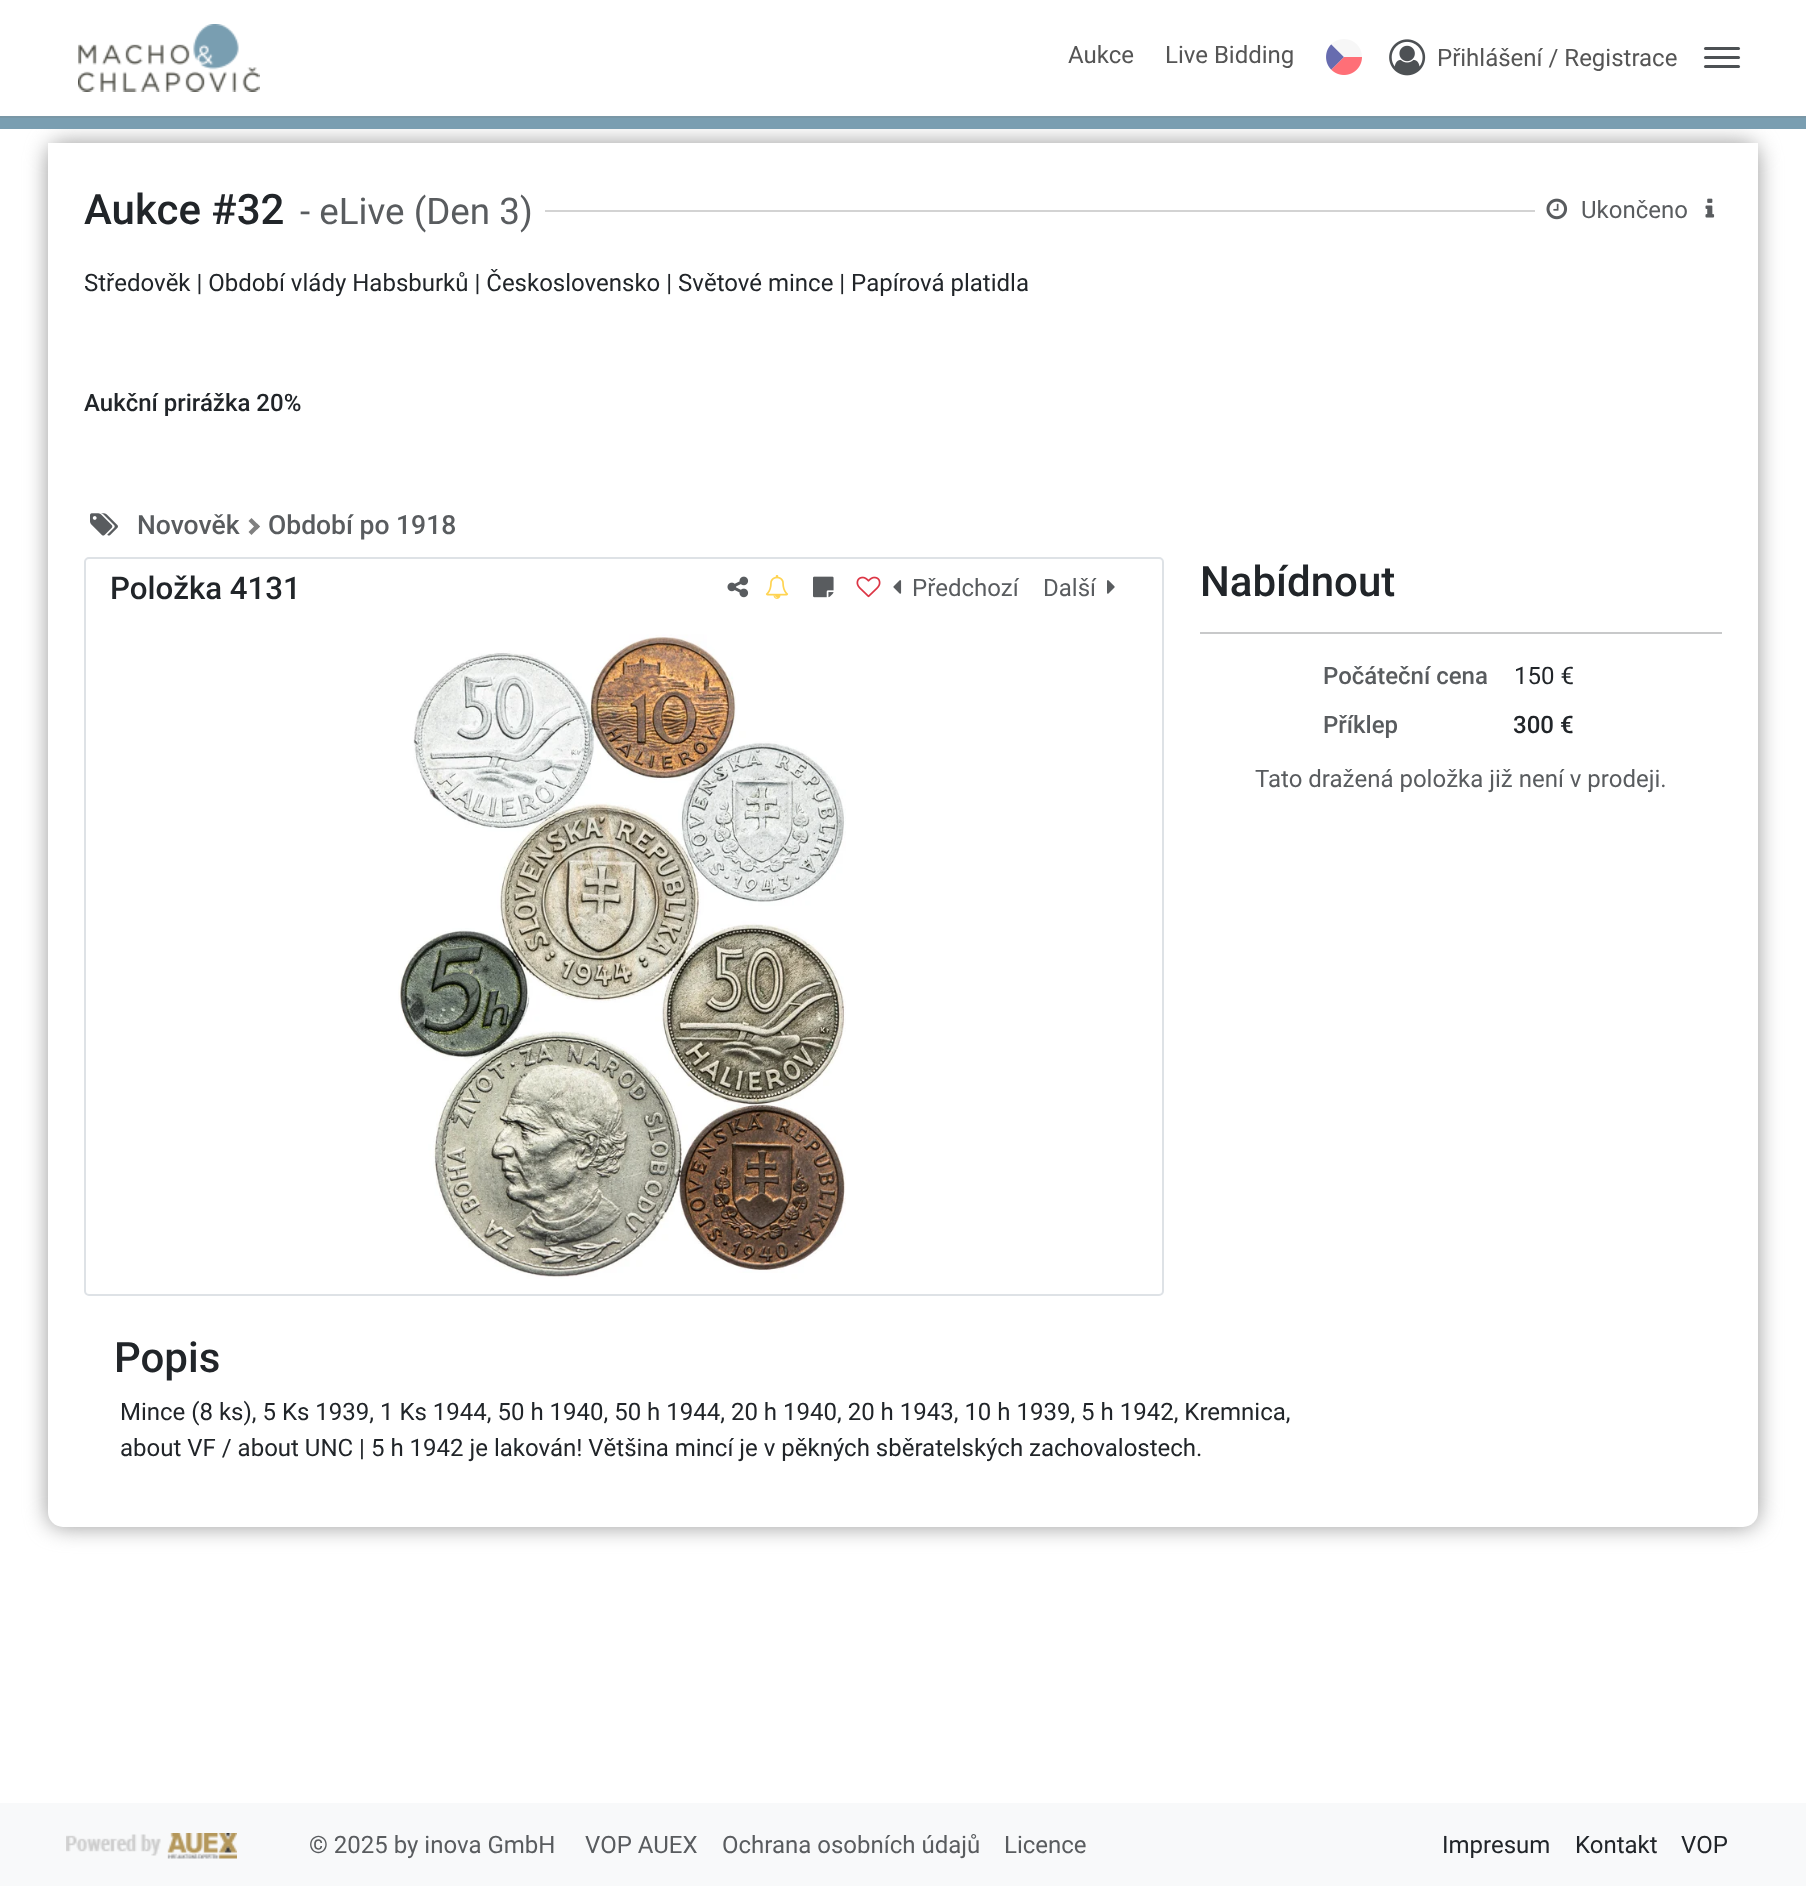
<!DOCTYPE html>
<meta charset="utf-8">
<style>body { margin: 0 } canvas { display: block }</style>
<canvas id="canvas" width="1806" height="1886"></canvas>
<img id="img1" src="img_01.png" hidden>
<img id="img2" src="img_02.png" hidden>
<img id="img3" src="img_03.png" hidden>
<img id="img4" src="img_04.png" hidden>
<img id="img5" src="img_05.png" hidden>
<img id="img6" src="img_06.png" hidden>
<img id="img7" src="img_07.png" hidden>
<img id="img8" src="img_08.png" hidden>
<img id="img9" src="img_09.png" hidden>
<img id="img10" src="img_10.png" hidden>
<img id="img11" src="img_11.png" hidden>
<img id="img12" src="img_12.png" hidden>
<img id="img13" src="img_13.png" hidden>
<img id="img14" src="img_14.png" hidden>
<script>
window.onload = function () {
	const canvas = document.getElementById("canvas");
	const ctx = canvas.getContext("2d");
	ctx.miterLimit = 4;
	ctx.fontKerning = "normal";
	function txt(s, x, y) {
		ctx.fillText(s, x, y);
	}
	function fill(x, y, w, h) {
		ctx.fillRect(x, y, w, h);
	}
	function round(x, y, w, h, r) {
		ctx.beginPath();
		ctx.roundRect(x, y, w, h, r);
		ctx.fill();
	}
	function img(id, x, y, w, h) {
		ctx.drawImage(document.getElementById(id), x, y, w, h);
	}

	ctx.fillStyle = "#FFFFFF";
	fill(0, 0, 1806, 1886);
	img("img1", 78, 24, 182, 68);
	img("img2", 1326, 39, 36, 36);
	img("img3", 1389, 39, 37, 37);
	ctx.fillStyle = "#4D5154";
	round(1704, 47, 36, 3, 1.5);
	round(1704, 56, 36, 3, 1.5);
	round(1704, 65, 36, 3, 1.5);
	ctx.fillStyle = "#999999";
	ctx.filter = "blur(11px)";
	ctx.beginPath();
	ctx.roundRect(48, 143, 1710, 1384, 15);
	ctx.fill();
	ctx.filter = "none";
	ctx.fillStyle = "#7A9EB1";
	fill(0, 118, 1806, 11);
	ctx.fillStyle = "#7A97A6";
	fill(0, 116, 1806, 2);
	ctx.fillStyle = "#FFFFFF";
	ctx.beginPath();
	ctx.roundRect(48, 143, 1710, 1384, [0, 0, 15, 15]);
	ctx.fill();
	ctx.fillStyle = "#D3D3D3";
	fill(545, 210, 990, 2);
	img("img4", 1546, 198, 22, 22);
	img("img5", 1705, 198, 10, 20);
	img("img6", 90, 513, 28, 23);
	ctx.fillStyle = "#808080";
	ctx.beginPath();
	ctx.moveTo(248.5, 521);
	ctx.lineTo(251.5, 518);
	ctx.lineTo(260, 526.5);
	ctx.lineTo(257, 529.5);
	ctx.closePath();
	ctx.fill();
	ctx.beginPath();
	ctx.moveTo(248.5, 532);
	ctx.lineTo(257, 523.5);
	ctx.lineTo(260, 526.5);
	ctx.lineTo(251.5, 535);
	ctx.closePath();
	ctx.fill();
	ctx.beginPath();
	ctx.roundRect(85, 558, 1078, 737, 4);
	ctx.strokeStyle = "#DEE2E6";
	ctx.lineWidth = 2;
	ctx.stroke();
	img("img7", 727, 576, 22, 22);
	img("img8", 765, 575, 24, 24);
	img("img9", 813, 576, 21, 22);
	img("img10", 856, 576, 25, 22);
	img("img11", 893, 580, 9, 14);
	img("img12", 1107, 580, 8, 14);
	img("img13", 398, 634, 448, 645);
	ctx.fillStyle = "#C8C9CA";
	fill(1200, 632, 522, 2);
	ctx.fillStyle = "#F8F9FA";
	fill(0, 1803, 1806, 83);
	img("img14", 66, 1833, 171, 26);
	ctx.font = "24px Roboto";
	ctx.fillStyle = "#555555";
	txt("Aukce", 1068, 63);
	txt("Live Bidding", 1165, 63);
	txt("Přihlášení / Registrace", 1437, 66);
	ctx.font = "500 42px Roboto";
	ctx.fillStyle = "#212529";
	txt("Aukce #32", 84, 224);
	ctx.font = "36.75px Roboto";
	ctx.fillStyle = "#595C5F";
	txt("- eLive (Den 3)", 300, 224);
	ctx.font = "24px Roboto";
	txt("Ukončeno", 1581, 218);
	ctx.fillStyle = "#212529";
	txt("Středověk | Období vlády Habsburků | Československo | Světové mince | Papírová platidla", 84, 291);
	ctx.font = "500 24px Roboto";
	txt("Aukční prirážka 20%", 84, 411);
	ctx.font = "500 26.5px Roboto";
	ctx.fillStyle = "#595C5F";
	txt("Novověk", 137, 534);
	txt("Období po 1918", 268, 534);
	ctx.font = "500 31.25px Roboto";
	ctx.fillStyle = "#212529";
	txt("Položka 4131", 110, 599);
	ctx.font = "24px Roboto";
	ctx.fillStyle = "#595C5F";
	txt("Předchozí", 912, 596);
	txt("Další", 1043, 596);
	ctx.font = "500 42px Roboto";
	ctx.fillStyle = "#212529";
	txt("Nabídnout", 1200, 596);
	ctx.font = "500 24px Roboto";
	ctx.fillStyle = "#595C5F";
	txt("Počáteční cena", 1323, 684);
	ctx.font = "24px Roboto";
	ctx.fillStyle = "#212529";
	txt("150 €", 1514, 684);
	ctx.font = "500 24px Roboto";
	ctx.fillStyle = "#595C5F";
	txt("Příklep", 1323, 733);
	ctx.fillStyle = "#212529";
	txt("300 €", 1513, 733);
	ctx.font = "24px Roboto";
	ctx.fillStyle = "#595C5F";
	txt("Tato dražená položka již není v prodeji.", 1255, 787);
	ctx.font = "500 42px Roboto";
	ctx.fillStyle = "#212529";
	txt("Popis", 114, 1372);
	ctx.font = "24px Roboto";
	txt("Mince (8 ks), 5 Ks 1939, 1 Ks 1944, 50 h 1940, 50 h 1944, 20 h 1940, 20 h 1943, 10 h 1939, 5 h 1942, Kremnica,", 120, 1420);
	txt("about VF / about UNC | 5 h 1942 je lakován! Většina mincí je v pěkných sběratelských zachovalostech.", 120, 1456);
	ctx.fillStyle = "#595C5F";
	txt("© 2025 by inova GmbH", 309, 1853);
	txt("VOP AUEX", 585, 1853);
	txt("Ochrana osobních údajů", 722, 1853);
	txt("Licence", 1004, 1853);
	ctx.fillStyle = "#212529";
	txt("Impresum", 1442, 1853);
	txt("Kontakt", 1575, 1853);
	txt("VOP", 1681, 1853);
};
</script>
